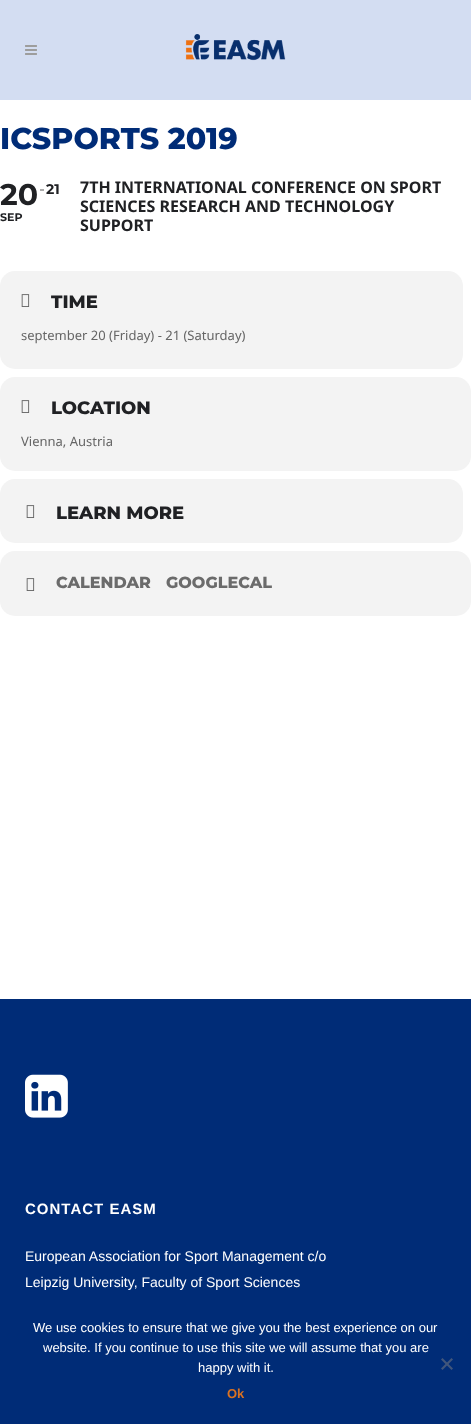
<!DOCTYPE html>
<meta charset="utf-8">
<style>body { margin: 0 } canvas { display: block }</style>
<canvas id="canvas" width="471" height="1424"></canvas>
<img id="img1" src="img_01.png" hidden>
<img id="img2" src="img_02.png" hidden>
<img id="img3" src="img_03.png" hidden>
<img id="img4" src="img_04.png" hidden>
<script>
window.onload = function () {
	const canvas = document.getElementById("canvas");
	const ctx = canvas.getContext("2d");
	ctx.miterLimit = 4;
	ctx.fontKerning = "normal";
	function txt(s, x, y) {
		ctx.fillText(s, x, y);
	}
	function fill(x, y, w, h) {
		ctx.fillRect(x, y, w, h);
	}
	function round(x, y, w, h, r) {
		ctx.beginPath();
		ctx.roundRect(x, y, w, h, r);
		ctx.fill();
	}
	function img(id, x, y, w, h) {
		ctx.drawImage(document.getElementById(id), x, y, w, h);
	}

	ctx.fillStyle = "#FFFFFF";
	fill(0, 0, 471, 1424);
	ctx.fillStyle = "#D3DDF2";
	fill(0, 0, 471, 100);
	img("img1", 25, 45, 12, 10);
	img("img2", 185, 34, 101, 27);
	ctx.fillStyle = "#ABABAB";
	fill(40, 189, 4, 2);
	ctx.fillStyle = "#F3F3F3";
	round(0, 271, 463, 98, 15);
	img("img3", 21, 294, 9, 13);
	round(0, 377, 471, 94, 15);
	img("img3", 21, 400, 9, 13);
	round(0, 479, 463, 64, 15);
	img("img3", 26, 505, 9, 13);
	round(0, 551, 471, 65, 15);
	img("img3", 26, 578, 9, 13);
	ctx.fillStyle = "#002C77";
	fill(0, 999, 471, 425);
	img("img4", 25, 1074, 43, 44);
	ctx.fillStyle = "#40567C";
	ctx.beginPath();
	ctx.moveTo(451.5, 1358);
	ctx.lineTo(453, 1359.5);
	ctx.lineTo(442.5, 1370);
	ctx.lineTo(441, 1368.5);
	ctx.closePath();
	ctx.fill();
	ctx.beginPath();
	ctx.moveTo(441, 1359.5);
	ctx.lineTo(442.5, 1358);
	ctx.lineTo(453, 1368.5);
	ctx.lineTo(451.5, 1370);
	ctx.closePath();
	ctx.fill();
	ctx.font = "800 30px Montserrat";
	ctx.fillStyle = "#002C77";
	txt("ICSPORTS 2019", 0, 149);
	ctx.font = "bold 30px Montserrat";
	ctx.fillStyle = "#202124";
	txt("20", 0, 205);
	ctx.font = "bold 11px Montserrat";
	txt("SEP", 0, 221);
	ctx.font = "bold 14px Montserrat";
	txt("21", 46, 194);
	ctx.font = "bold 16px Noto Sans";
	txt("7TH INTERNATIONAL CONFERENCE ON SPORT", 80, 193);
	txt("SCIENCES RESEARCH AND TECHNOLOGY", 80, 212);
	txt("SUPPORT", 80, 231);
	ctx.font = "800 18px Montserrat";
	txt("TIME", 51, 308);
	ctx.font = "13px Noto Sans";
	ctx.fillStyle = "#656565";
	txt("september 20 (Friday) - 21 (Saturday)", 21, 340);
	ctx.font = "800 18px Montserrat";
	ctx.fillStyle = "#202124";
	txt("LOCATION", 51, 414);
	ctx.font = "13px Noto Sans";
	ctx.fillStyle = "#656565";
	txt("Vienna, Austria", 21, 446);
	ctx.font = "800 18px Montserrat";
	ctx.fillStyle = "#202124";
	txt("LEARN MORE", 56, 519);
	ctx.font = "800 16px Montserrat";
	ctx.fillStyle = "#6B6B6B";
	txt("CALENDAR", 56, 588);
	txt("GOOGLECAL", 166, 588);
	ctx.letterSpacing = "1px";
	ctx.font = "bold 15px Liberation Sans";
	ctx.fillStyle = "#FFFFFF";
	txt("CONTACT EASM", 25, 1214);
	ctx.letterSpacing = "0px";
	ctx.font = "14px Liberation Sans";
	txt("European Association for Sport Management c/o", 25, 1261);
	txt("Leipzig University, Faculty of Sport Sciences", 25, 1287);
	ctx.font = "13px Liberation Sans";
	txt("We use cookies to ensure that we give you the best experience on our", 33, 1332);
	txt("website. If you continue to use this site we will assume that you are", 43, 1352);
	txt("happy with it.", 198, 1372);
	ctx.font = "bold 13px Liberation Sans";
	ctx.fillStyle = "#D97222";
	txt("Ok", 227, 1398);
};
</script>
